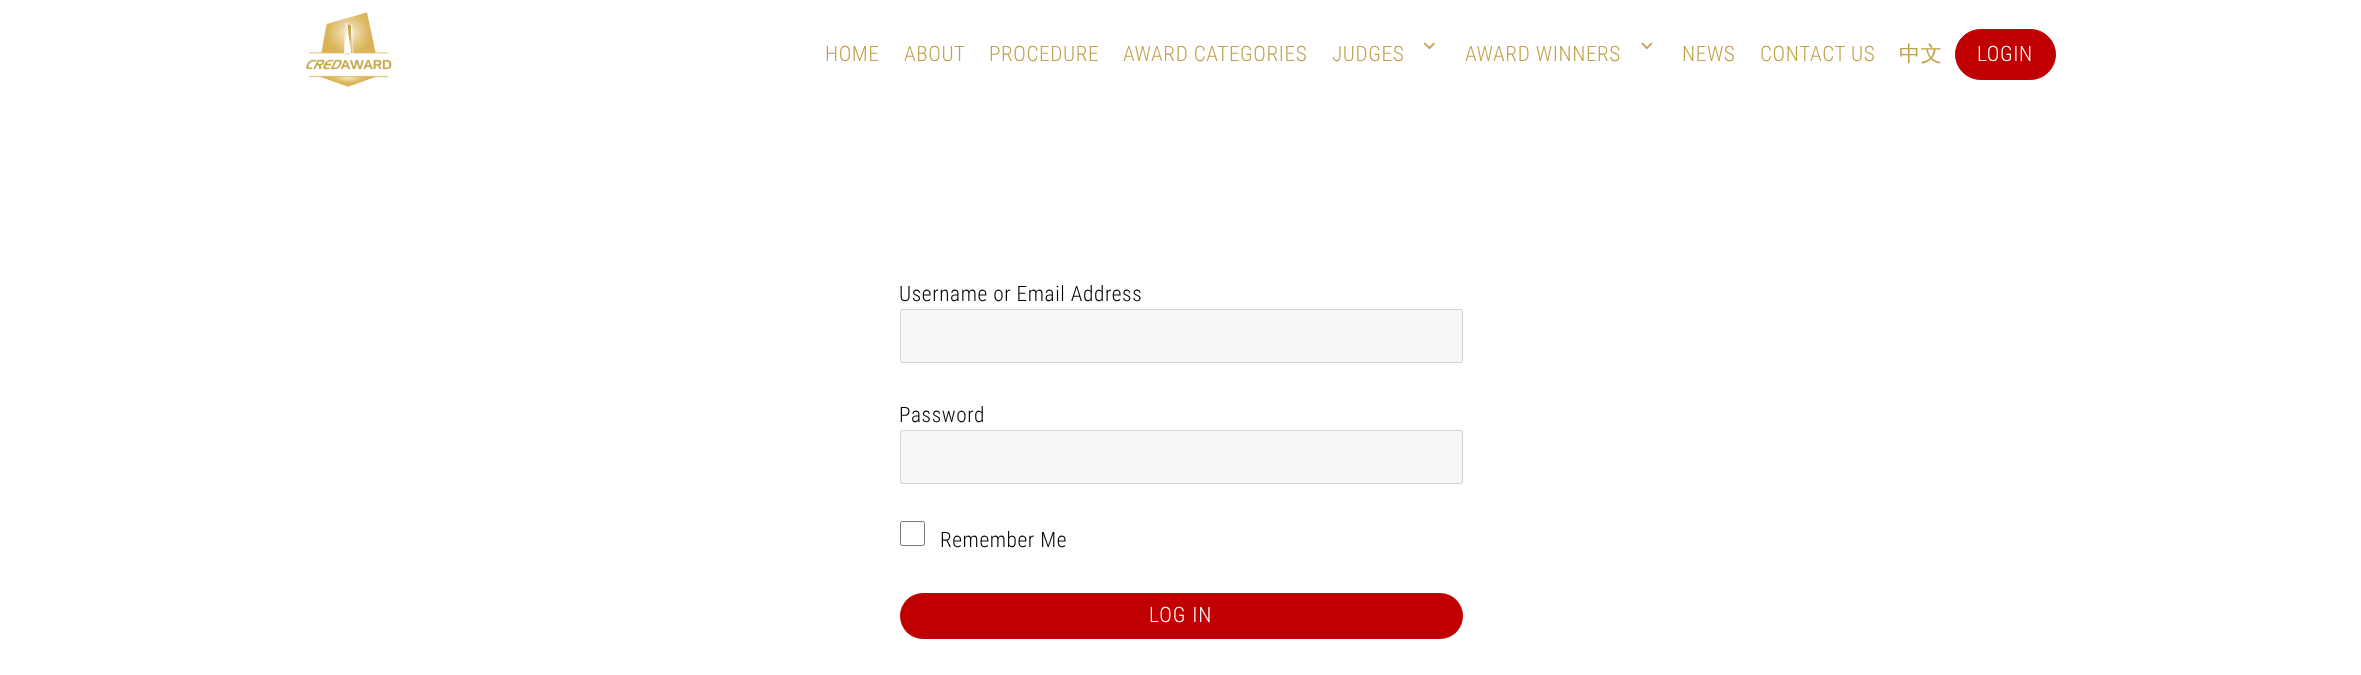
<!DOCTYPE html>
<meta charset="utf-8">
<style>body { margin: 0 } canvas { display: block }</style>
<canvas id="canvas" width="2361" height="675"></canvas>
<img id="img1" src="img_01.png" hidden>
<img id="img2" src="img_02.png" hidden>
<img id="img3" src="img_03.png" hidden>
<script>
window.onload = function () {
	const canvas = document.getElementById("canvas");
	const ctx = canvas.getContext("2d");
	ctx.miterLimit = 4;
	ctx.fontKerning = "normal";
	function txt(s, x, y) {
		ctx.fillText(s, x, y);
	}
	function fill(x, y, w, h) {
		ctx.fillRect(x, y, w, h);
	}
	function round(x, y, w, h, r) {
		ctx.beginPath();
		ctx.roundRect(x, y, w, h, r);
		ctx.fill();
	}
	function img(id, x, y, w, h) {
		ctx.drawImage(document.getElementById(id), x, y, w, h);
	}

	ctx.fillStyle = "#FFFFFF";
	fill(0, 0, 2361, 675);
	img("img1", 306, 12, 86, 76);
	img("img2", 1423, 42, 12, 8);
	img("img3", 1641, 42, 12, 8);
	ctx.fillStyle = "#C00000";
	ctx.beginPath();
	ctx.roundRect(1955.5, 29.5, 100, 50, 25);
	ctx.fill();
	ctx.strokeStyle = "#C00000";
	ctx.stroke();
	ctx.fillStyle = "#F7F7F7";
	ctx.beginPath();
	ctx.roundRect(900.5, 309.5, 562, 53, 2);
	ctx.fill();
	ctx.strokeStyle = "#D1D1D1";
	ctx.stroke();
	ctx.beginPath();
	ctx.roundRect(900.5, 430.5, 562, 53, 2);
	ctx.fill();
	ctx.stroke();
	ctx.beginPath();
	ctx.roundRect(900.5, 521.5, 24, 24, 2);
	ctx.strokeStyle = "#767676";
	ctx.stroke();
	ctx.fillStyle = "#C00000";
	round(900, 593, 563, 46, 23);
	ctx.letterSpacing = "0.6px";
	ctx.font = "300 21.25px Roboto Condensed";
	ctx.fillStyle = "#C1A04A";
	txt("HOME", 825, 61);
	txt("ABOUT", 904, 61);
	txt("PROCEDURE", 989, 61);
	txt("AWARD CATEGORIES", 1123, 61);
	txt("JUDGES", 1332, 61);
	txt("AWARD WINNERS", 1465, 61);
	txt("NEWS", 1682, 61);
	txt("CONTACT US", 1760, 61);
	ctx.font = "500 21.25px WenQuanYi Zen Hei";
	txt("中文", 1899, 61);
	ctx.font = "300 21.25px Roboto Condensed";
	ctx.fillStyle = "#FFFFFF";
	txt("LOGIN", 1977, 61);
	ctx.fillStyle = "#000000";
	txt("Username or Email Address", 899, 301);
	txt("Password", 899, 422);
	txt("Remember Me", 940, 547);
	ctx.letterSpacing = "1px";
	ctx.fillStyle = "#FFFFFF";
	txt("LOG IN", 1149, 622);
};
</script>
